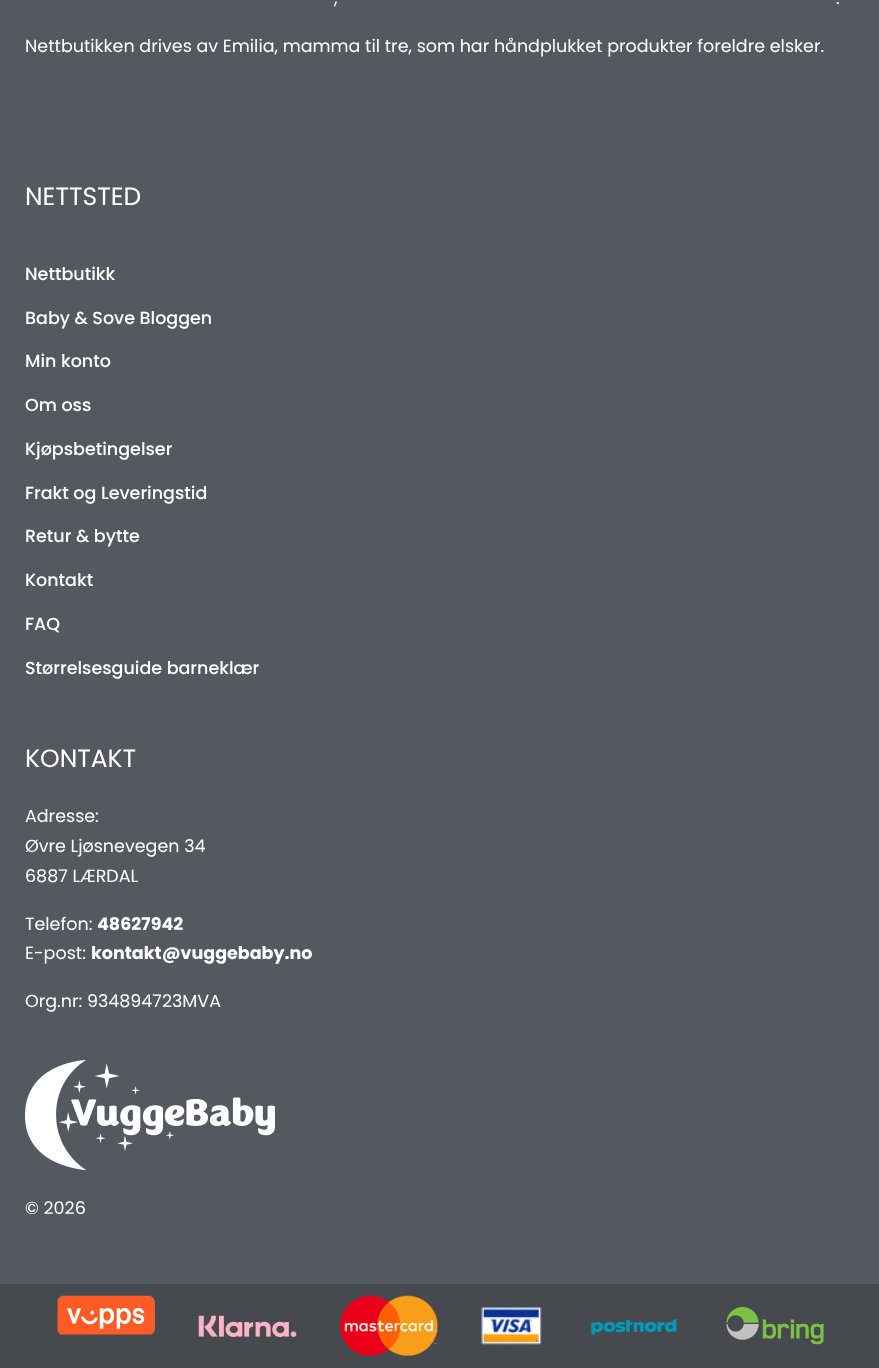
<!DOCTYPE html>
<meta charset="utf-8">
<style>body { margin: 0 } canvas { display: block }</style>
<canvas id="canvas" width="879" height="1368"></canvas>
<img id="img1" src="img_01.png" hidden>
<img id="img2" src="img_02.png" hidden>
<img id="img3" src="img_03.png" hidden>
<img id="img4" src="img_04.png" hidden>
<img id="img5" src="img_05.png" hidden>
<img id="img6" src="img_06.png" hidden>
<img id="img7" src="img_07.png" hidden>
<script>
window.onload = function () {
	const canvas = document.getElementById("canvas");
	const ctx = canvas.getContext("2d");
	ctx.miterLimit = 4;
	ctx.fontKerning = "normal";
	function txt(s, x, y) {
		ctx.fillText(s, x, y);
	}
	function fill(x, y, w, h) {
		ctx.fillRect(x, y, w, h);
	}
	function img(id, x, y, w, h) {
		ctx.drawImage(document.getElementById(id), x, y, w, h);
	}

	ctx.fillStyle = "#464A4E";
	fill(0, 0, 879, 1368);
	ctx.fillStyle = "#54595F";
	fill(0, 0, 879, 1284);
	img("img1", 25, 1060, 250, 110);
	img("img2", 57, 1295, 98, 40);
	img("img3", 198, 1315, 99, 22);
	img("img4", 340, 1295, 98, 61);
	img("img5", 481, 1307, 61, 38);
	img("img6", 591, 1319, 86, 16);
	img("img7", 726, 1307, 98, 38);
	ctx.font = "17.5px Poppins";
	ctx.fillStyle = "#FFFFFF";
	txt(",", 334, 4);
	txt(".", 836, 4);
	txt("Nettbutikken drives av Emilia, mamma til tre, som har håndplukket produkter foreldre elsker.", 25, 52);
	ctx.font = "25px Poppins";
	txt("NETTSTED", 25, 205);
	ctx.font = "500 17.5px Poppins";
	txt("Nettbutikk", 25, 280);
	txt("Baby & Sove Bloggen", 25, 324);
	txt("Min konto", 25, 367);
	txt("Om oss", 25, 411);
	txt("Kjøpsbetingelser", 25, 455);
	txt("Frakt og Leveringstid", 25, 499);
	txt("Retur & bytte", 25, 542);
	txt("Kontakt", 25, 586);
	txt("FAQ", 25, 630);
	txt("Størrelsesguide barneklær", 25, 674);
	ctx.font = "25px Poppins";
	txt("KONTAKT", 25, 767);
	ctx.font = "17.5px Poppins";
	txt("Adresse:", 25, 822);
	txt("Øvre Ljøsnevegen 34", 25, 852);
	txt("6887 LÆRDAL", 25, 882);
	txt("Telefon:", 25, 930);
	ctx.font = "bold 17.5px Poppins";
	txt("48627942", 97, 930);
	ctx.font = "17.5px Poppins";
	txt("E-post:", 25, 959);
	ctx.font = "bold 17.5px Poppins";
	txt("kontakt@vuggebaby.no", 91, 959);
	ctx.font = "17.5px Poppins";
	txt("Org.nr: 934894723MVA", 25, 1007);
	txt("© 2026", 25, 1214);
};
</script>
